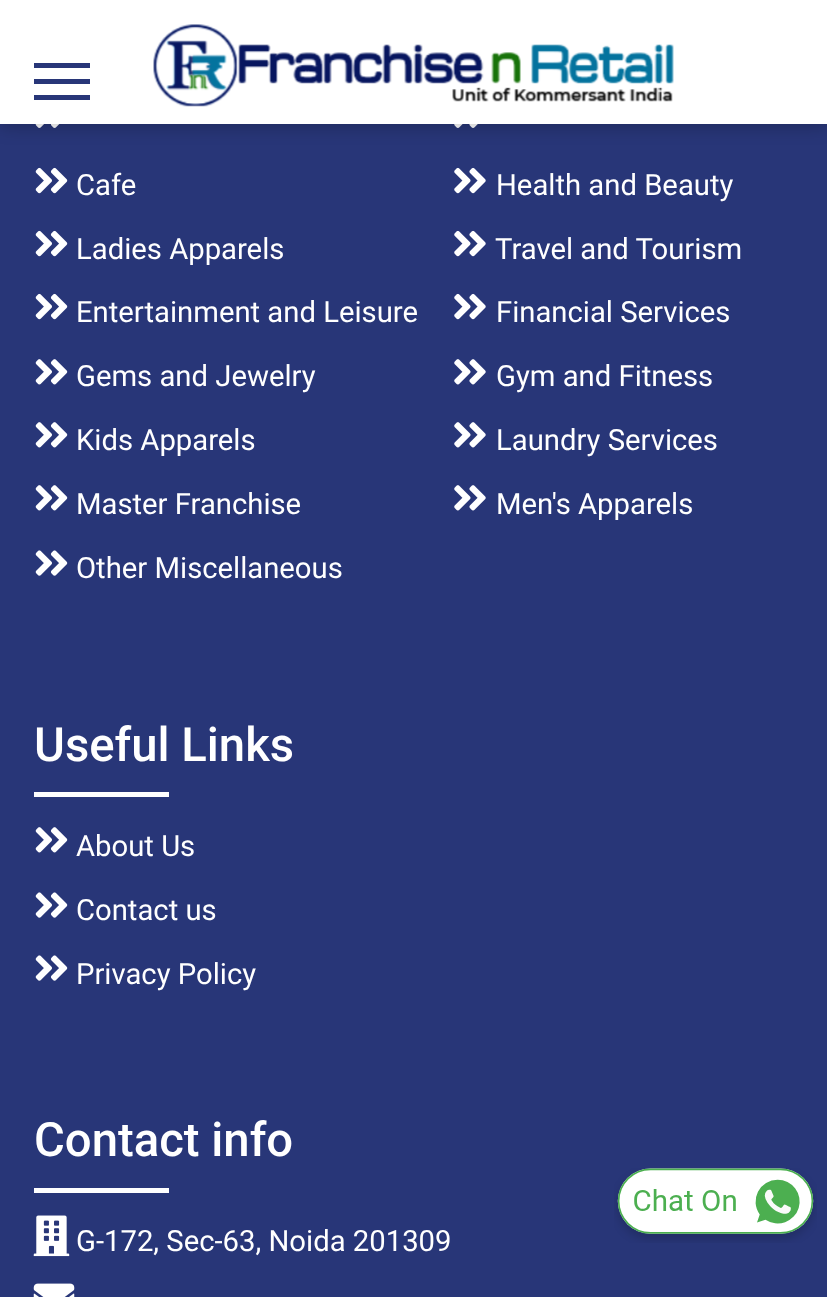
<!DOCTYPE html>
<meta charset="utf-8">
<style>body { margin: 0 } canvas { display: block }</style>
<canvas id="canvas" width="827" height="1297"></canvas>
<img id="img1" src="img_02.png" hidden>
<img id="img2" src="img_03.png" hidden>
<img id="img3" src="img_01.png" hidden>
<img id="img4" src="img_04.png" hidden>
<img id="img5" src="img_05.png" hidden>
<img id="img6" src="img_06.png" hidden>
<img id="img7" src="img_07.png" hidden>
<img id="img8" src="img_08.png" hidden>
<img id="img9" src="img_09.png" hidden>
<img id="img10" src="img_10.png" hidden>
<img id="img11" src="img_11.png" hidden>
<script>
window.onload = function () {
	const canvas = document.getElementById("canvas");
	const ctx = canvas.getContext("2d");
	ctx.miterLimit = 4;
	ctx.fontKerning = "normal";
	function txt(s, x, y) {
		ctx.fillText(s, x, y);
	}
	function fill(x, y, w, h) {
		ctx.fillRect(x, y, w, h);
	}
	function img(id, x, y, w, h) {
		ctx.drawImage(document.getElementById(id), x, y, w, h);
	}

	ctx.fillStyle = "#283678";
	fill(0, 0, 827, 1297);
	img("img1", 35, 124, 25, 4);
	img("img2", 454, 124, 24, 4);
	ctx.fillStyle = "rgba(0, 0, 0, 0.25)";
	ctx.filter = "blur(9px)";
	ctx.beginPath();
	ctx.rect(0, 2, 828, 124);
	ctx.fill();
	ctx.filter = "none";
	ctx.fillStyle = "#FFFFFF";
	fill(0, 0, 827, 124);
	ctx.fillStyle = "#283678";
	fill(34, 63, 56, 5);
	fill(34, 79, 56, 5);
	fill(34, 95, 56, 5);
	img("img3", 153, 24, 521, 83);
	img("img4", 35, 167, 33, 27);
	img("img5", 454, 167, 32, 27);
	img("img4", 35, 230, 33, 27);
	img("img5", 454, 230, 32, 27);
	img("img4", 35, 293, 33, 27);
	img("img5", 454, 293, 32, 27);
	img("img6", 35, 359, 33, 26);
	img("img7", 454, 359, 32, 26);
	img("img6", 35, 422, 33, 26);
	img("img7", 454, 422, 32, 26);
	img("img6", 35, 485, 33, 26);
	img("img7", 454, 485, 32, 26);
	img("img8", 35, 550, 33, 26);
	ctx.fillStyle = "#FFFFFF";
	fill(34, 792, 135, 5);
	img("img6", 35, 827, 33, 26);
	img("img8", 35, 892, 33, 26);
	img("img8", 35, 955, 33, 26);
	fill(34, 1188, 135, 5);
	img("img9", 33, 1215, 37, 42);
	img("img10", 33, 1283, 42, 14);
	img("img11", 614, 1168, 203, 75);
	ctx.font = "29.25px Roboto";
	txt("Cafe", 76, 195);
	txt("Health and Beauty", 496, 195);
	txt("Ladies Apparels", 76, 259);
	txt("Travel and Tourism", 495, 259);
	txt("Entertainment and Leisure", 76, 322);
	txt("Financial Services", 496, 322);
	txt("Gems and Jewelry", 76, 386);
	txt("Gym and Fitness", 496, 386);
	txt("Kids Apparels", 76, 450);
	txt("Laundry Services", 496, 450);
	txt("Master Franchise", 76, 514);
	txt("Men's Apparels", 496, 514);
	txt("Other Miscellaneous", 76, 578);
	ctx.font = "500 47.25px Roboto";
	txt("Useful Links", 34, 761);
	ctx.font = "29.25px Roboto";
	txt("About Us", 76, 856);
	txt("Contact us", 76, 920);
	txt("Privacy Policy", 76, 984);
	ctx.font = "500 47.25px Roboto";
	txt("Contact info", 34, 1156);
	ctx.font = "29.25px Roboto";
	txt("G-172, Sec-63, Noida 201309", 76, 1251);
};
</script>
